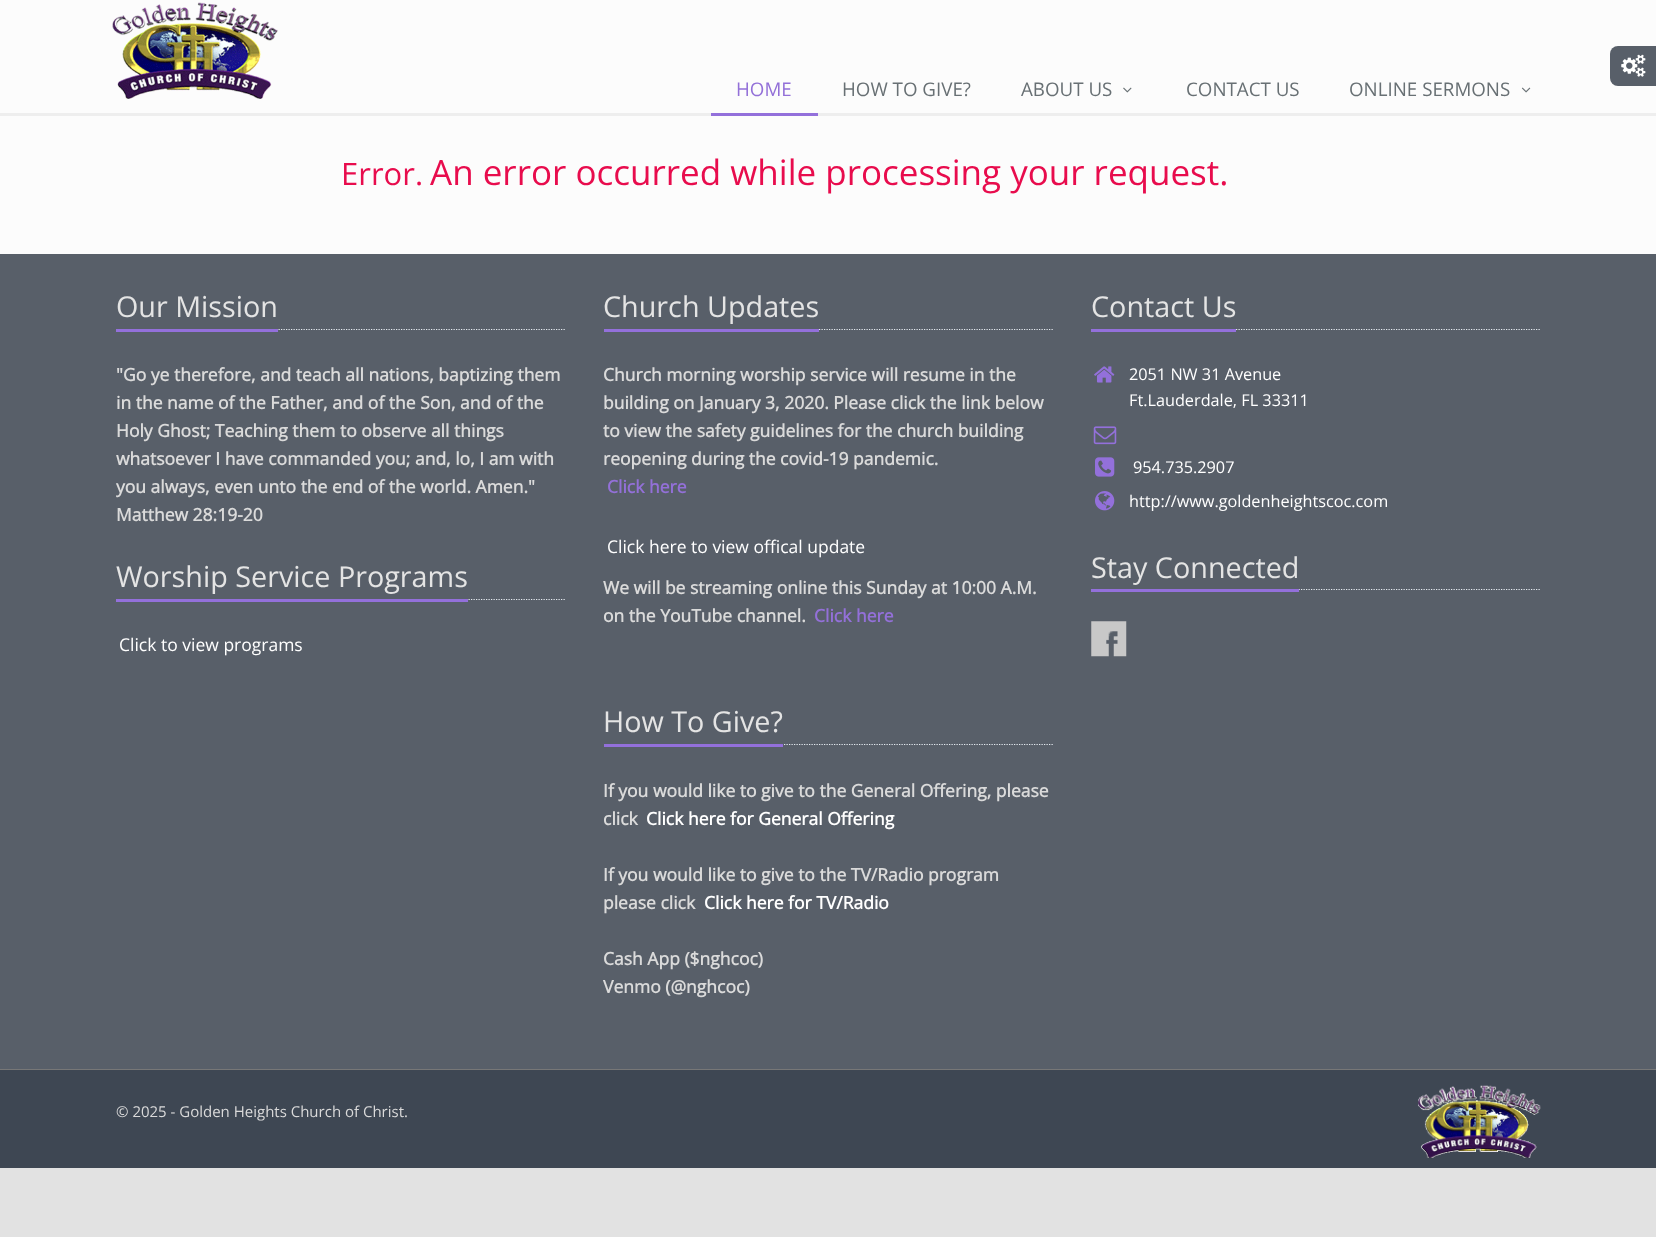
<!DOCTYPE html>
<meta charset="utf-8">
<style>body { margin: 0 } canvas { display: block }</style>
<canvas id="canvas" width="1656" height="1237"></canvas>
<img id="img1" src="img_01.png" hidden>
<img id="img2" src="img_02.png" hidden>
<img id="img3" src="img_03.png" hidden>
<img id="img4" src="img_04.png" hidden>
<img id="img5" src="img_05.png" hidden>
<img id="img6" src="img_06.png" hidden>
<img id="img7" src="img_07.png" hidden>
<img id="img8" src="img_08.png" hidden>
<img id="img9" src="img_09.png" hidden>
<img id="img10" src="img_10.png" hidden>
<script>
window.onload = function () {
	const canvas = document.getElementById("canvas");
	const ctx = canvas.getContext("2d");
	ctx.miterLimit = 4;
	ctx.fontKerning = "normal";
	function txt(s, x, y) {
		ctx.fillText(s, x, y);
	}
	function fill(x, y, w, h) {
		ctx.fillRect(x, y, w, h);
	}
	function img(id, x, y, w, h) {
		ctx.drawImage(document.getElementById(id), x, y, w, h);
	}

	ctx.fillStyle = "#E2E2E2";
	fill(0, 0, 1656, 1237);
	ctx.fillStyle = "#FCFCFC";
	fill(0, 0, 1656, 254);
	ctx.fillStyle = "#585F69";
	ctx.beginPath();
	ctx.roundRect(1610, 46, 46, 40, [8, 0, 0, 8]);
	ctx.fill();
	img("img1", 1621, 54, 25, 23);
	ctx.fillStyle = "#EEEEEE";
	fill(0, 113, 1656, 3);
	img("img2", 112, 2, 166, 97);
	ctx.fillStyle = "#9370DB";
	fill(711, 113, 107, 3);
	img("img3", 1123, 87, 9, 6);
	img("img4", 1521, 87, 10, 6);
	ctx.fillStyle = "#585F69";
	fill(0, 254, 1656, 815);
	ctx.beginPath();
	ctx.moveTo(116, 329.5);
	ctx.lineTo(566, 329.5);
	ctx.strokeStyle = "#E4E9F0";
	ctx.lineWidth = 1.2;
	ctx.setLineDash([1.25, 1.25]);
	ctx.stroke();
	ctx.fillStyle = "#9370DB";
	fill(116, 329, 162, 3);
	ctx.beginPath();
	ctx.moveTo(116, 599.5);
	ctx.lineTo(566, 599.5);
	ctx.stroke();
	fill(116, 599, 352, 3);
	ctx.beginPath();
	ctx.moveTo(604, 329.5);
	ctx.lineTo(1054, 329.5);
	ctx.stroke();
	fill(604, 329, 215, 3);
	ctx.beginPath();
	ctx.moveTo(604, 744.5);
	ctx.lineTo(1054, 744.5);
	ctx.stroke();
	fill(604, 744, 179, 3);
	ctx.beginPath();
	ctx.moveTo(1091, 329.5);
	ctx.lineTo(1541, 329.5);
	ctx.stroke();
	fill(1091, 329, 145, 3);
	img("img5", 1094, 366, 21, 17);
	img("img6", 1093, 426, 24, 19);
	img("img7", 1095, 457, 20, 20);
	img("img8", 1095, 491, 20, 20);
	ctx.beginPath();
	ctx.moveTo(1091, 589.5);
	ctx.lineTo(1541, 589.5);
	ctx.stroke();
	fill(1091, 589, 208, 3);
	img("img9", 1091, 621, 36, 36);
	ctx.fillStyle = "#3E4753";
	fill(0, 1070, 1656, 98);
	ctx.fillStyle = "#777777";
	fill(0, 1069, 1656, 1);
	img("img10", 1418, 1085, 123, 73);
	ctx.font = "18.75px Open Sans";
	ctx.fillStyle = "#9370D8";
	txt("HOME", 736, 96);
	ctx.fillStyle = "#687074";
	txt("HOW TO GIVE?", 842, 96);
	txt("ABOUT US", 1021, 96);
	txt("CONTACT US", 1186, 96);
	txt("ONLINE SERMONS", 1349, 96);
	ctx.font = "31px Open Sans";
	ctx.fillStyle = "#E80C4D";
	txt("Error.", 341, 185);
	ctx.font = "35px Open Sans";
	txt("An error occurred while processing your request.", 430, 185);
	ctx.font = "28.75px Open Sans";
	ctx.fillStyle = "#E4E4E4";
	txt("Our Mission", 116, 317);
	ctx.font = "bold 17.5px Open Sans";
	ctx.fillStyle = "#DADADA";
	txt("\"Go ye therefore, and teach all nations, baptizing them", 116, 381);
	txt("in the name of the Father, and of the Son, and of the", 116, 409);
	txt("Holy Ghost; Teaching them to observe all things", 116, 437);
	txt("whatsoever I have commanded you; and, lo, I am with", 116, 465);
	txt("you always, even unto the end of the world. Amen.\"", 116, 493);
	txt("Matthew 28:19-20", 116, 521);
	ctx.font = "28.75px Open Sans";
	ctx.fillStyle = "#E4E4E4";
	txt("Worship Service Programs", 116, 587);
	ctx.font = "17.5px Open Sans";
	ctx.fillStyle = "#FFFFFF";
	txt("Click to view programs", 119, 651);
	ctx.font = "28.75px Open Sans";
	ctx.fillStyle = "#E4E4E4";
	txt("Church Updates", 603, 317);
	ctx.font = "bold 17.5px Open Sans";
	ctx.fillStyle = "#DADADA";
	txt("Church morning worship service will resume in the", 603, 381);
	txt("building on January 3, 2020. Please click the link below", 603, 409);
	txt("to view the safety guidelines for the church building", 603, 437);
	txt("reopening during the covid-19 pandemic.", 603, 465);
	ctx.fillStyle = "#9370D8";
	txt("Click here", 607, 493);
	ctx.font = "17.5px Open Sans";
	ctx.fillStyle = "#FFFFFF";
	txt("Click here to view offical update", 607, 553);
	ctx.font = "bold 17.5px Open Sans";
	ctx.fillStyle = "#DADADA";
	txt("We will be streaming online this Sunday at 10:00 A.M.", 603, 594);
	txt("on the YouTube channel.", 603, 622);
	ctx.fillStyle = "#9370D8";
	txt("Click here", 814, 622);
	ctx.font = "28.75px Open Sans";
	ctx.fillStyle = "#E4E4E4";
	txt("How To Give?", 603, 732);
	ctx.font = "bold 17.5px Open Sans";
	ctx.fillStyle = "#DADADA";
	txt("If you would like to give to the General Offering, please", 603, 797);
	txt("click", 603, 825);
	ctx.fillStyle = "#FFFFFF";
	txt("Click here for General Offering", 646, 825);
	ctx.fillStyle = "#DADADA";
	txt("If you would like to give to the TV/Radio program", 603, 881);
	txt("please click", 603, 909);
	ctx.fillStyle = "#FFFFFF";
	txt("Click here for TV/Radio", 704, 909);
	ctx.fillStyle = "#DADADA";
	txt("Cash App ($nghcoc)", 603, 965);
	txt("Venmo (@nghcoc)", 603, 993);
	ctx.font = "28.75px Open Sans";
	ctx.fillStyle = "#E4E4E4";
	txt("Contact Us", 1091, 317);
	ctx.font = "16.25px Open Sans";
	ctx.fillStyle = "#FFFFFF";
	txt("2051 NW 31 Avenue", 1129, 380);
	txt("Ft.Lauderdale, FL 33311", 1129, 406);
	txt("954.735.2907", 1133, 473);
	txt("http://www.goldenheightscoc.com", 1129, 507);
	ctx.font = "28.75px Open Sans";
	ctx.fillStyle = "#E4E4E4";
	txt("Stay Connected", 1091, 578);
	ctx.font = "15px Open Sans";
	ctx.fillStyle = "#DADADA";
	txt("© 2025 - Golden Heights Church of Christ.", 116, 1117);
};
</script>
